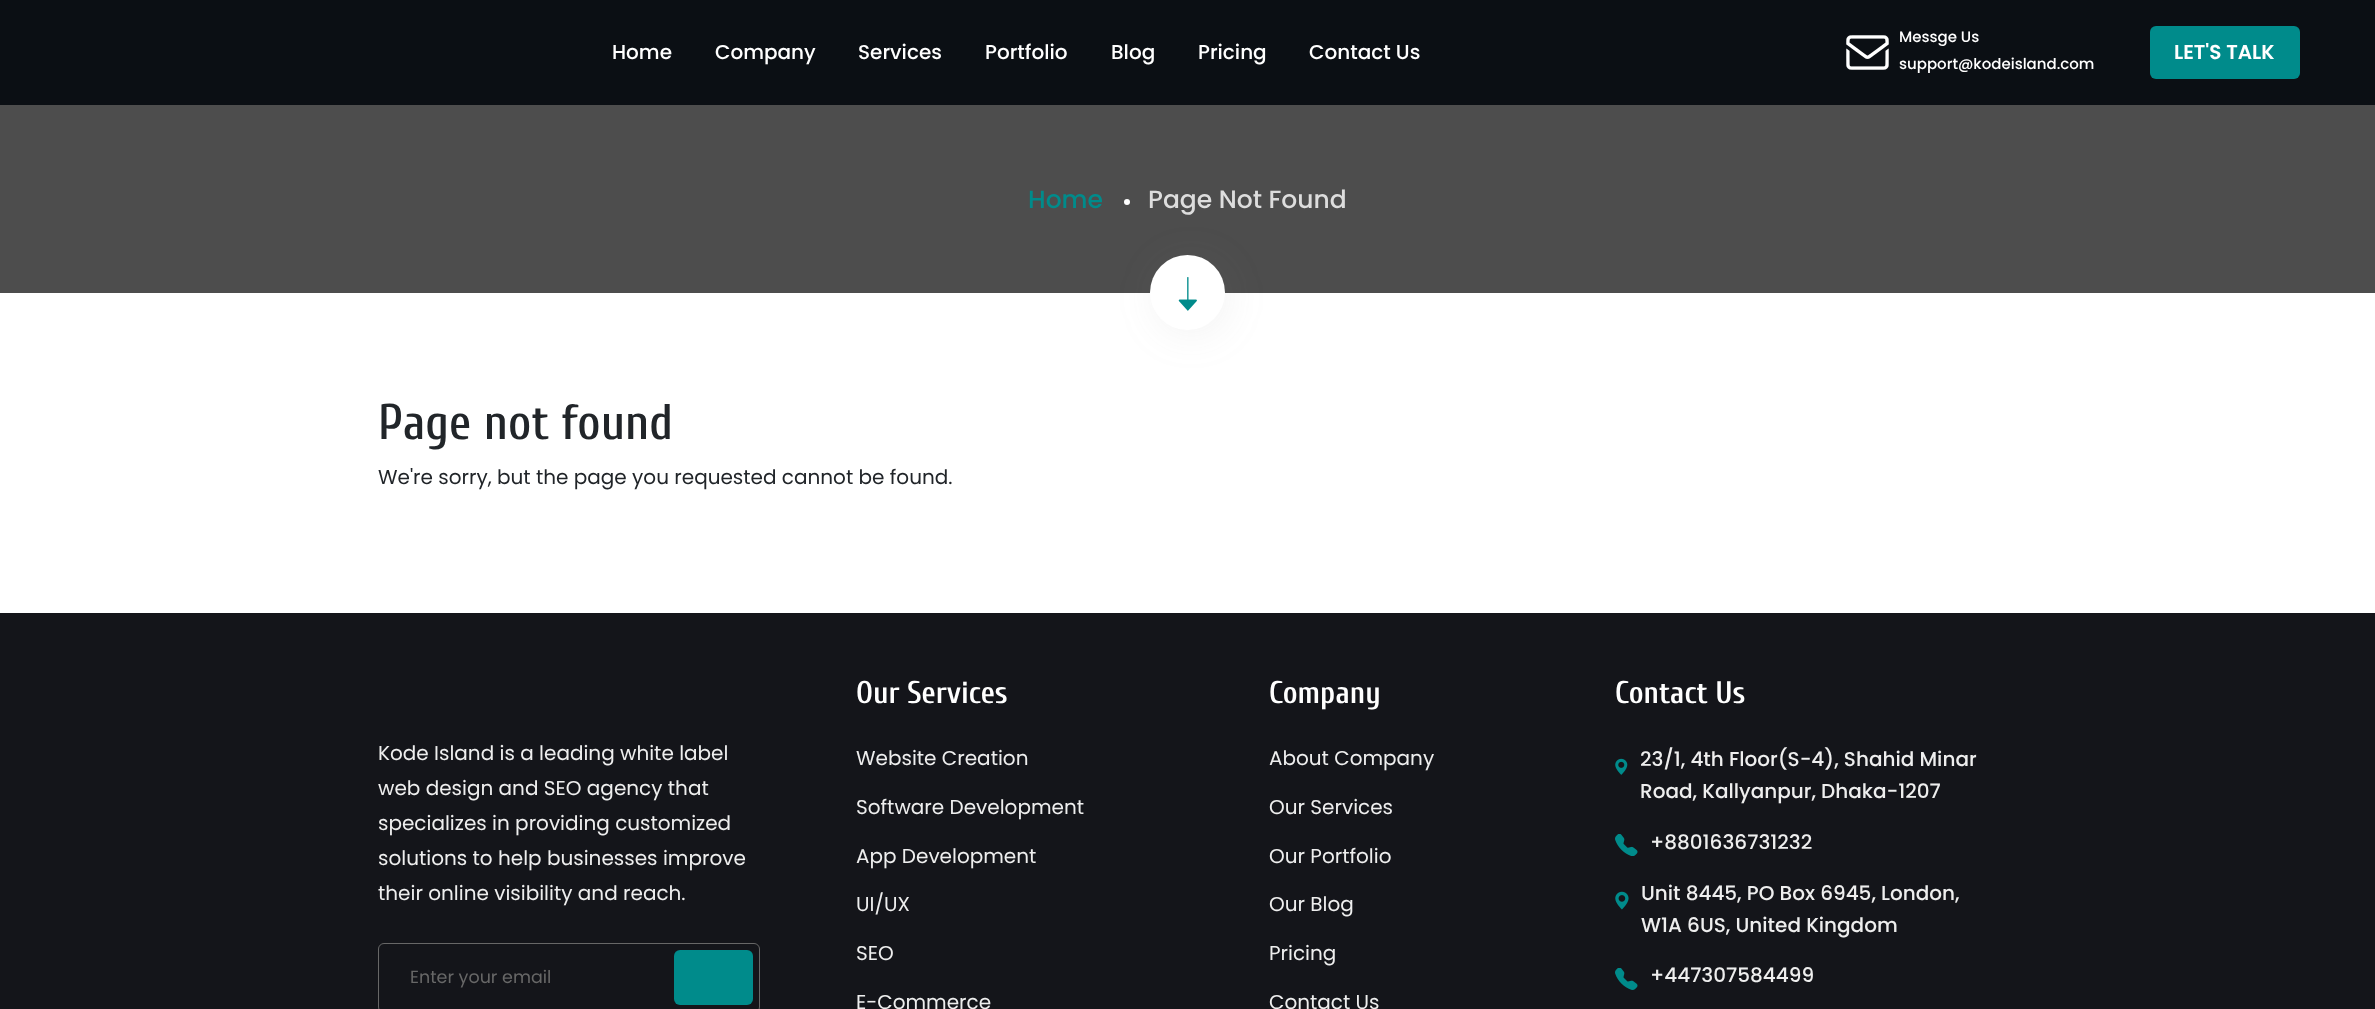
<!DOCTYPE html>
<meta charset="utf-8">
<style>body { margin: 0 } canvas { display: block }</style>
<canvas id="canvas" width="2375" height="1009"></canvas>
<img id="img1" src="img_01.png" hidden>
<img id="img2" src="img_02.png" hidden>
<img id="img3" src="img_03.png" hidden>
<img id="img4" src="img_04.png" hidden>
<img id="img5" src="img_05.png" hidden>
<img id="img6" src="img_06.png" hidden>
<script>
window.onload = function () {
	const canvas = document.getElementById("canvas");
	const ctx = canvas.getContext("2d");
	ctx.miterLimit = 4;
	ctx.fontKerning = "normal";
	function txt(s, x, y) {
		ctx.fillText(s, x, y);
	}
	function fill(x, y, w, h) {
		ctx.fillRect(x, y, w, h);
	}
	function round(x, y, w, h, r) {
		ctx.beginPath();
		ctx.roundRect(x, y, w, h, r);
		ctx.fill();
	}
	function img(id, x, y, w, h) {
		ctx.drawImage(document.getElementById(id), x, y, w, h);
	}

	ctx.fillStyle = "#FFFFFF";
	fill(0, 0, 2375, 1009);
	ctx.fillStyle = "#0B0F14";
	fill(0, 0, 2375, 105);
	img("img1", 1846, 35, 43, 35);
	ctx.fillStyle = "#008B8B";
	round(2150, 26, 150, 53, 6);
	ctx.fillStyle = "#4D4D4D";
	fill(0, 105, 2375, 188);
	ctx.fillStyle = "rgba(136, 136, 136, 0.1)";
	ctx.filter = "blur(19px)";
	ctx.beginPath();
	ctx.roundRect(1154, 260, 75, 75, 37.5);
	ctx.fill();
	ctx.filter = "none";
	ctx.fillStyle = "#FFFFFF";
	ctx.beginPath();
	ctx.arc(1127, 202, 3, 0, Math.PI * 2);
	ctx.fill();
	ctx.beginPath();
	ctx.arc(1187.5, 292.5, 37.5, 0, Math.PI * 2);
	ctx.fill();
	img("img2", 1178, 277, 19, 34);
	ctx.fillStyle = "#14151A";
	fill(0, 613, 2375, 396);
	ctx.beginPath();
	ctx.roundRect(378.5, 943.5, 381, 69, 5.5);
	ctx.strokeStyle = "#676767";
	ctx.stroke();
	ctx.fillStyle = "#008B8B";
	round(674, 950, 79, 55, 6);
	img("img3", 1615, 758, 13, 17);
	img("img4", 1615, 834, 23, 22);
	img("img5", 1615, 891, 14, 19);
	img("img6", 1615, 968, 23, 22);
	ctx.font = "500 20px Poppins";
	ctx.fillStyle = "#FFFFFF";
	txt("Home", 612, 59);
	txt("Company", 715, 59);
	txt("Services", 858, 59);
	txt("Portfolio", 985, 59);
	txt("Blog", 1111, 59);
	txt("Pricing", 1198, 59);
	txt("Contact Us", 1309, 59);
	ctx.font = "500 15px Poppins";
	txt("Messge Us", 1899, 42);
	txt("support@kodeisland.com", 1899, 69);
	ctx.font = "600 20px Poppins";
	txt("LET'S TALK", 2174, 59);
	ctx.font = "500 25px Poppins";
	ctx.fillStyle = "#008B8B";
	txt("Home", 1028, 208);
	ctx.fillStyle = "#DDDDDD";
	txt("Page Not Found", 1148, 208);
	ctx.font = "500 50px Cuprum";
	ctx.fillStyle = "#212529";
	txt("Page not found", 378, 439);
	ctx.font = "20px Poppins";
	txt("We're sorry, but the page you requested cannot be found.", 378, 484);
	ctx.fillStyle = "#EEEEEE";
	txt("Kode Island is a leading white label", 378, 760);
	txt("web design and SEO agency that", 378, 795);
	txt("specializes in providing customized", 378, 830);
	txt("solutions to help businesses improve", 378, 865);
	txt("their online visibility and reach.", 378, 900);
	ctx.font = "17.5px Poppins";
	ctx.fillStyle = "#676767";
	txt("Enter your email", 410, 983);
	ctx.font = "600 31.25px Cuprum";
	ctx.fillStyle = "#FFFFFF";
	txt("Our Services", 856, 703);
	ctx.font = "20px Poppins";
	ctx.fillStyle = "#EEEEEE";
	txt("Website Creation", 856, 765);
	txt("Software Development", 856, 814);
	txt("App Development", 856, 863);
	txt("UI/UX", 856, 911);
	txt("SEO", 856, 960);
	txt("E-Commerce", 856, 1009);
	ctx.font = "600 31.25px Cuprum";
	ctx.fillStyle = "#FFFFFF";
	txt("Company", 1269, 703);
	ctx.font = "20px Poppins";
	ctx.fillStyle = "#EEEEEE";
	txt("About Company", 1269, 765);
	txt("Our Services", 1269, 814);
	txt("Our Portfolio", 1269, 863);
	txt("Our Blog", 1269, 911);
	txt("Pricing", 1269, 960);
	txt("Contact Us", 1269, 1009);
	ctx.font = "600 31.25px Cuprum";
	ctx.fillStyle = "#FFFFFF";
	txt("Contact Us", 1615, 703);
	ctx.font = "500 20px Poppins";
	ctx.fillStyle = "#EEEEEE";
	txt("23/1, 4th Floor(S-4), Shahid Minar", 1640, 766);
	txt("Road, Kallyanpur, Dhaka-1207", 1640, 798);
	txt("+8801636731232", 1650, 849);
	txt("Unit 8445, PO Box 6945, London,", 1641, 900);
	txt("W1A 6US, United Kingdom", 1641, 932);
	txt("+447307584499", 1650, 982);
};
</script>
